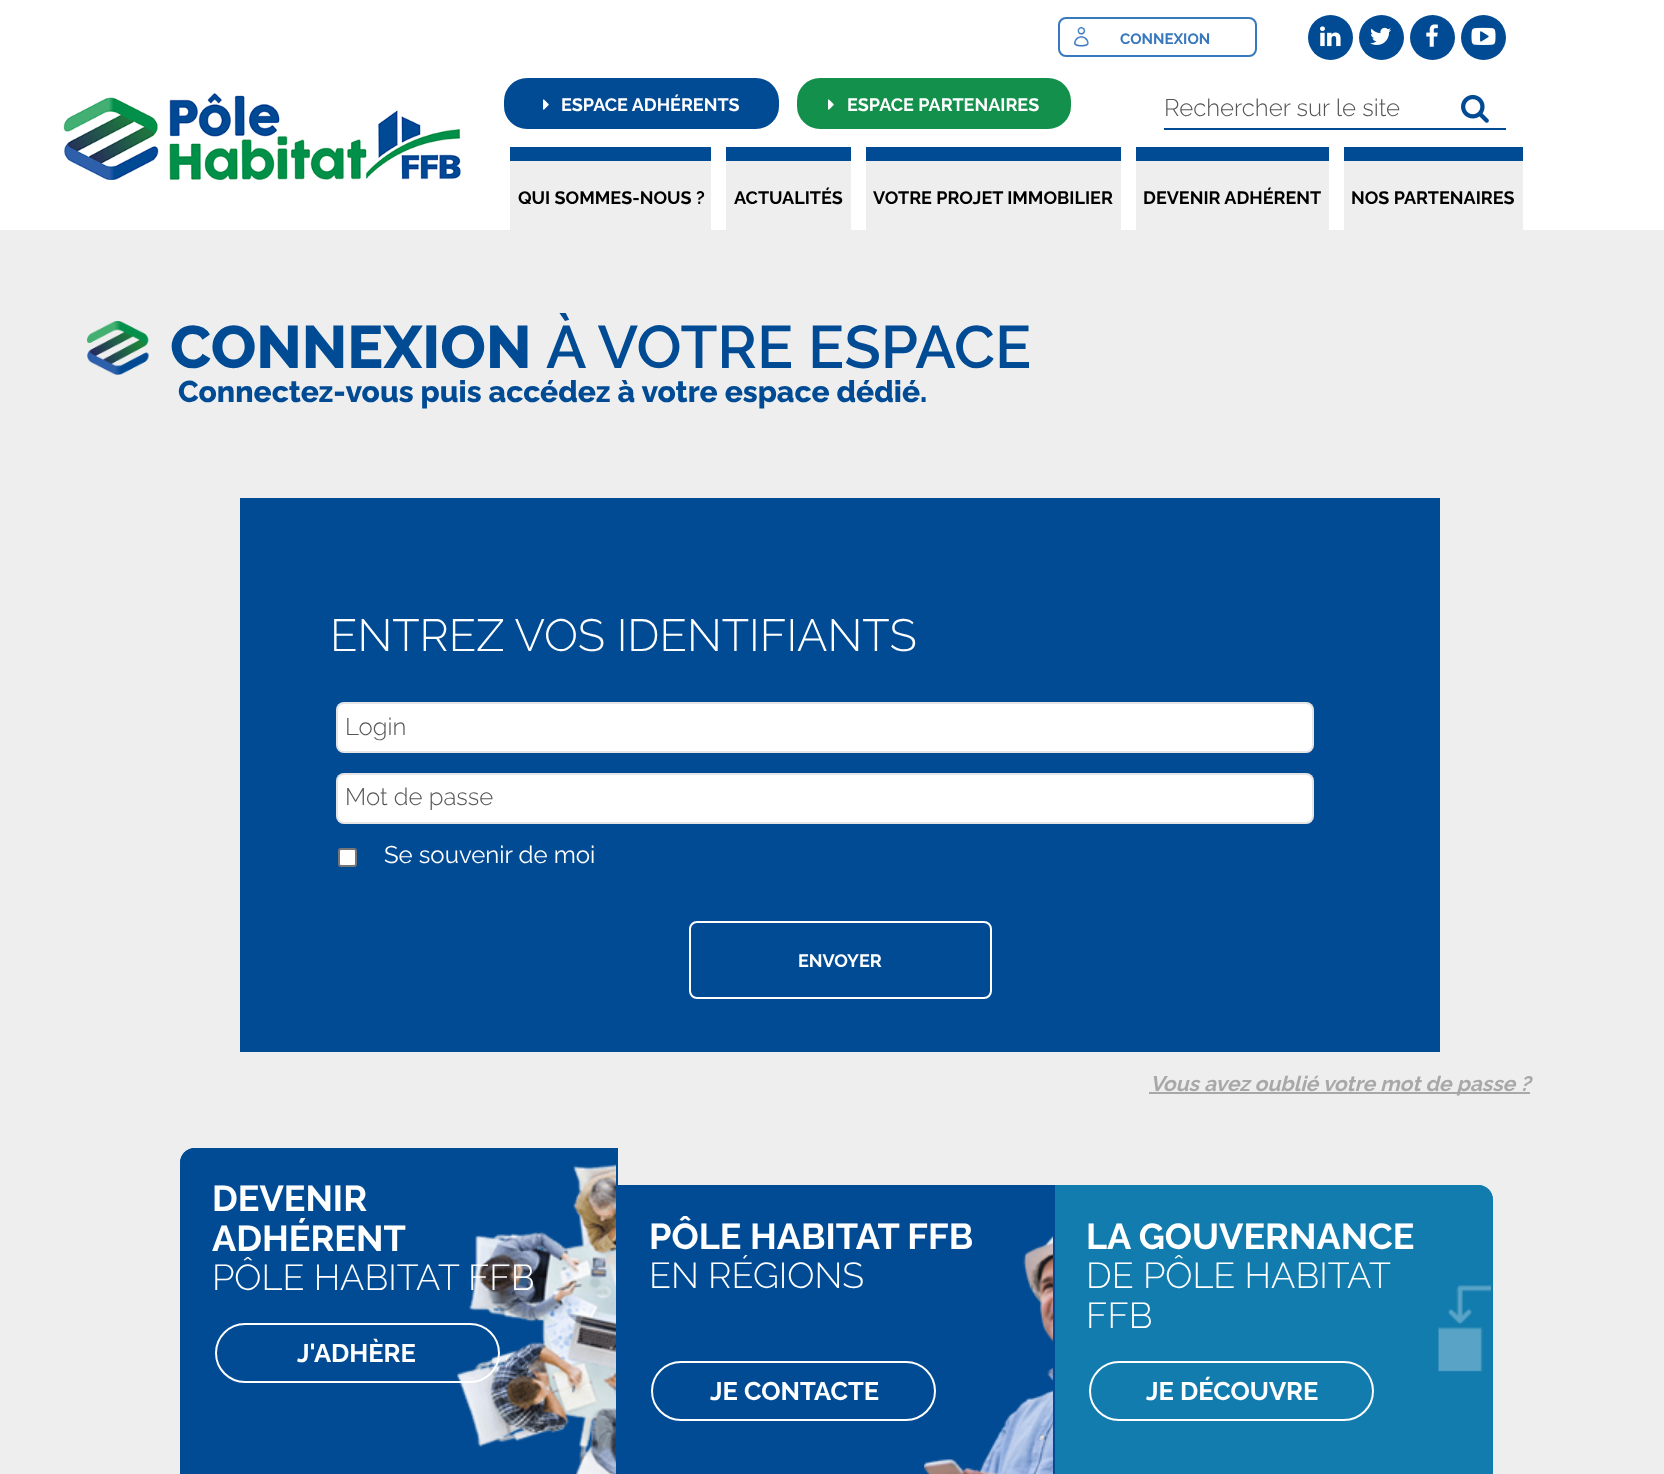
<!DOCTYPE html>
<meta charset="utf-8">
<style>body { margin: 0 } canvas { display: block }</style>
<canvas id="canvas" width="1664" height="1474"></canvas>
<img id="img1" src="img_01.png" hidden>
<img id="img2" src="img_02.png" hidden>
<img id="img3" src="img_03.png" hidden>
<img id="img4" src="img_04.png" hidden>
<img id="img5" src="img_05.png" hidden>
<img id="img6" src="img_06.png" hidden>
<img id="img7" src="img_07.png" hidden>
<img id="img8" src="img_08.png" hidden>
<img id="img9" src="img_09.png" hidden>
<img id="img10" src="img_10.png" hidden>
<img id="img11" src="img_11.png" hidden>
<img id="img12" src="img_12.png" hidden>
<img id="img13" src="img_13.png" hidden>
<script>
window.onload = function () {
	const canvas = document.getElementById("canvas");
	const ctx = canvas.getContext("2d");
	ctx.miterLimit = 4;
	ctx.fontKerning = "normal";
	function txt(s, x, y) {
		ctx.fillText(s, x, y);
	}
	function fill(x, y, w, h) {
		ctx.fillRect(x, y, w, h);
	}
	function round(x, y, w, h, r) {
		ctx.beginPath();
		ctx.roundRect(x, y, w, h, r);
		ctx.fill();
	}
	function img(id, x, y, w, h) {
		ctx.drawImage(document.getElementById(id), x, y, w, h);
	}

	ctx.fillStyle = "#FFFFFF";
	fill(0, 0, 1664, 1474);
	img("img1", 1074, 27, 15, 20);
	ctx.beginPath();
	ctx.roundRect(1059, 18, 197, 38, 7);
	ctx.strokeStyle = "#3878BD";
	ctx.lineWidth = 2;
	ctx.stroke();
	ctx.fillStyle = "#014B94";
	ctx.beginPath();
	ctx.arc(1330.5, 37.5, 22.5, 0, Math.PI * 2);
	ctx.fill();
	img("img2", 1320, 26, 21, 21);
	ctx.beginPath();
	ctx.arc(1381.5, 37.5, 22.5, 0, Math.PI * 2);
	ctx.fill();
	img("img3", 1370, 27, 21, 18);
	ctx.beginPath();
	ctx.arc(1432.5, 37.5, 22.5, 0, Math.PI * 2);
	ctx.fill();
	img("img4", 1426, 24, 12, 23);
	ctx.beginPath();
	ctx.arc(1483.5, 37.5, 22.5, 0, Math.PI * 2);
	ctx.fill();
	img("img5", 1471, 27, 25, 18);
	ctx.beginPath();
	ctx.roundRect(505, 79, 273, 49, 22);
	ctx.fill();
	ctx.strokeStyle = "#014B94";
	ctx.stroke();
	img("img6", 543, 99, 6, 11);
	ctx.fillStyle = "#13904B";
	ctx.beginPath();
	ctx.roundRect(798, 79, 272, 49, 22);
	ctx.fill();
	ctx.strokeStyle = "#13904B";
	ctx.stroke();
	img("img7", 828, 99, 6, 11);
	ctx.fillStyle = "#014B94";
	fill(1164, 128, 342, 2);
	img("img8", 1461, 94, 28, 29);
	img("img9", 63, 93, 398, 87);
	ctx.fillStyle = "#EEEEEE";
	fill(510, 161, 201, 69);
	ctx.fillStyle = "#014B94";
	fill(510, 147, 201, 14);
	ctx.fillStyle = "#EEEEEE";
	fill(726, 161, 125, 69);
	ctx.fillStyle = "#014B94";
	fill(726, 147, 125, 14);
	ctx.fillStyle = "#EEEEEE";
	fill(866, 161, 255, 69);
	ctx.fillStyle = "#014B94";
	fill(866, 147, 255, 14);
	ctx.fillStyle = "#EEEEEE";
	fill(1136, 161, 193, 69);
	ctx.fillStyle = "#014B94";
	fill(1136, 147, 193, 14);
	ctx.fillStyle = "#EEEEEE";
	fill(1344, 161, 179, 69);
	ctx.fillStyle = "#014B94";
	fill(1344, 147, 179, 14);
	ctx.fillStyle = "#EEEEEE";
	fill(0, 230, 1664, 1244);
	img("img10", 87, 321, 62, 54);
	ctx.fillStyle = "#014B94";
	fill(240, 498, 1200, 554);
	ctx.fillStyle = "#FFFFFF";
	round(336, 702, 978, 51, 8);
	ctx.beginPath();
	ctx.roundRect(337, 703, 976, 49, 7);
	ctx.strokeStyle = "rgba(0, 0, 0, 0.1)";
	ctx.stroke();
	round(336, 773, 978, 51, 8);
	ctx.beginPath();
	ctx.roundRect(337, 774, 976, 49, 7);
	ctx.stroke();
	ctx.beginPath();
	ctx.roundRect(339, 849, 17, 17, 2);
	ctx.fill();
	ctx.strokeStyle = "#767676";
	ctx.stroke();
	ctx.beginPath();
	ctx.roundRect(690, 922, 301, 76, 7);
	ctx.strokeStyle = "#FFFFFF";
	ctx.stroke();
	ctx.fillStyle = "#A8A8A8";
	fill(1149, 1092, 381, 2);
	ctx.fillStyle = "#014B94";
	ctx.beginPath();
	ctx.moveTo(195, 1148);
	ctx.lineTo(618, 1148);
	ctx.lineTo(618, 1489);
	ctx.lineTo(195, 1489);
	ctx.bezierCurveTo(186.5, 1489, 180, 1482.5, 180, 1474);
	ctx.lineTo(180, 1163);
	ctx.bezierCurveTo(180, 1154.5, 186.5, 1148, 195, 1148);
	ctx.closePath();
	ctx.fill();
	img("img11", 457, 1164, 159, 310);
	ctx.beginPath();
	ctx.moveTo(195, 1149);
	ctx.lineTo(617, 1149);
	ctx.lineTo(617, 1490);
	ctx.lineTo(195, 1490);
	ctx.bezierCurveTo(187.5, 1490, 181, 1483.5, 181, 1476);
	ctx.lineTo(181, 1163);
	ctx.bezierCurveTo(181, 1155.5, 187.5, 1149, 195, 1149);
	ctx.closePath();
	ctx.strokeStyle = "#014B94";
	ctx.stroke();
	ctx.beginPath();
	ctx.roundRect(216, 1324, 283, 58, 29);
	ctx.strokeStyle = "#FFFFFF";
	ctx.stroke();
	fill(620, 1187, 433, 287);
	img("img12", 924, 1235, 129, 239);
	ctx.strokeStyle = "#014B94";
	ctx.strokeRect(619, 1186, 435, 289);
	ctx.beginPath();
	ctx.roundRect(652, 1362, 283, 58, 29);
	ctx.strokeStyle = "#FFFFFF";
	ctx.stroke();
	ctx.fillStyle = "#127CAE";
	ctx.beginPath();
	ctx.moveTo(1055, 1185);
	ctx.lineTo(1478, 1185);
	ctx.bezierCurveTo(1486.5, 1185, 1493, 1191.5, 1493, 1200);
	ctx.lineTo(1493, 1474);
	ctx.bezierCurveTo(1493, 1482.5, 1486.5, 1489, 1478, 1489);
	ctx.lineTo(1055, 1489);
	ctx.closePath();
	ctx.fill();
	img("img13", 1438, 1285, 53, 87);
	ctx.beginPath();
	ctx.moveTo(1056, 1186);
	ctx.lineTo(1478, 1186);
	ctx.bezierCurveTo(1485.5, 1186, 1492, 1192.5, 1492, 1200);
	ctx.lineTo(1492, 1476);
	ctx.bezierCurveTo(1492, 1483.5, 1485.5, 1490, 1478, 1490);
	ctx.lineTo(1056, 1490);
	ctx.closePath();
	ctx.strokeStyle = "#127CAE";
	ctx.stroke();
	ctx.beginPath();
	ctx.roundRect(1090, 1362, 283, 58, 29);
	ctx.strokeStyle = "#FFFFFF";
	ctx.stroke();
	ctx.font = "bold 15px Raleway";
	ctx.fillStyle = "#3878BD";
	txt("CONNEXION", 1120, 44);
	ctx.font = "bold 18px Raleway";
	ctx.fillStyle = "#FFFFFF";
	txt("ESPACE ADHÉRENTS", 561, 111);
	txt("ESPACE PARTENAIRES", 847, 111);
	ctx.font = "300 24px Raleway";
	ctx.fillStyle = "#555555";
	txt("Rechercher sur le site", 1164, 116);
	ctx.font = "bold 18px Raleway";
	ctx.fillStyle = "#000000";
	txt("QUI SOMMES-NOUS ?", 518, 204);
	txt("ACTUALITÉS", 734, 204);
	txt("VOTRE PROJET IMMOBILIER", 873, 204);
	txt("DEVENIR ADHÉRENT", 1143, 204);
	txt("NOS PARTENAIRES", 1351, 204);
	ctx.font = "800 60px Raleway";
	ctx.fillStyle = "#014B94";
	txt("CONNEXION", 170, 368);
	ctx.font = "600 60px Raleway";
	txt("À VOTRE ESPACE", 546, 368);
	ctx.font = "800 30px Raleway";
	txt("Connectez-vous puis accédez à votre espace dédié.", 178, 402);
	ctx.font = "300 45px Raleway";
	ctx.fillStyle = "#FFFFFF";
	txt("ENTREZ VOS IDENTIFIANTS", 330, 651);
	ctx.font = "300 24px Raleway";
	ctx.fillStyle = "#555555";
	txt("Login", 345, 735);
	txt("Mot de passe", 345, 805);
	ctx.font = "24px Raleway";
	ctx.fillStyle = "#FFFFFF";
	txt("Se souvenir de moi", 384, 863);
	ctx.font = "bold 18px Raleway";
	txt("ENVOYER", 798, 967);
	ctx.font = "italic bold 21px Raleway";
	ctx.fillStyle = "#A8A8A8";
	txt("Vous avez oublié votre mot de passe ?", 1150, 1091);
	ctx.font = "bold 36px Raleway";
	ctx.fillStyle = "#FFFFFF";
	txt("DEVENIR", 212, 1211);
	txt("ADHÉRENT", 212, 1251);
	ctx.font = "300 36px Raleway";
	txt("PÔLE HABITAT FFB", 212, 1290);
	ctx.font = "bold 25.5px Raleway";
	txt("J'ADHÈRE", 297, 1362);
	ctx.font = "bold 36px Raleway";
	txt("PÔLE HABITAT FFB", 649, 1249);
	ctx.font = "300 36px Raleway";
	txt("EN RÉGIONS", 649, 1288);
	ctx.font = "bold 25.5px Raleway";
	txt("JE CONTACTE", 710, 1400);
	ctx.font = "bold 36px Raleway";
	txt("LA GOUVERNANCE", 1086, 1249);
	ctx.font = "300 36px Raleway";
	txt("DE PÔLE HABITAT", 1086, 1288);
	txt("FFB", 1086, 1328);
	ctx.font = "bold 25.5px Raleway";
	txt("JE DÉCOUVRE", 1146, 1400);
};
</script>
